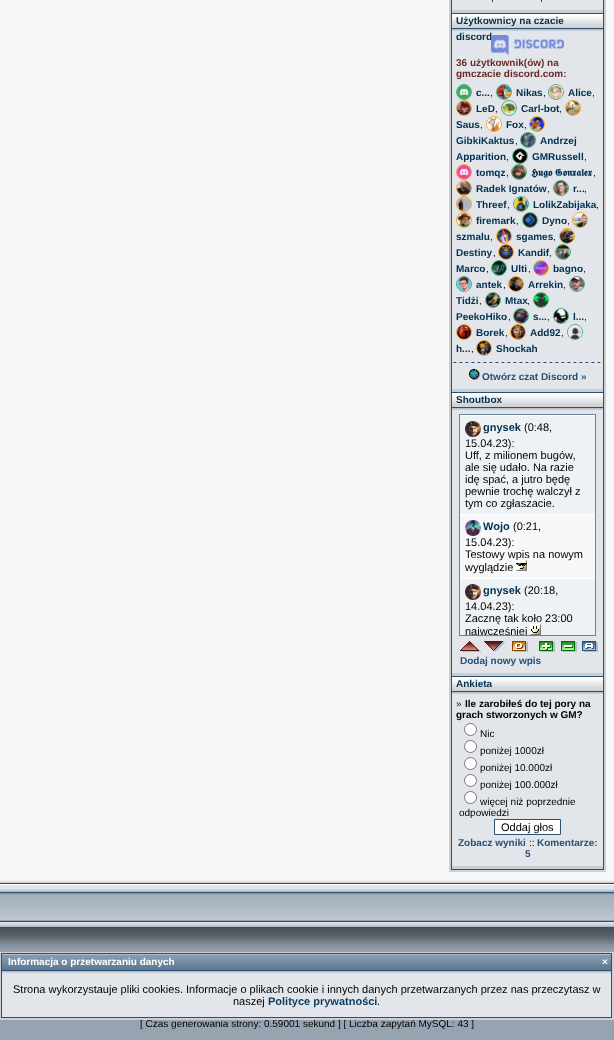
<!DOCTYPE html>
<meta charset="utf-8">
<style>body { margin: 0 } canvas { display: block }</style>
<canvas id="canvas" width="614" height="1040"></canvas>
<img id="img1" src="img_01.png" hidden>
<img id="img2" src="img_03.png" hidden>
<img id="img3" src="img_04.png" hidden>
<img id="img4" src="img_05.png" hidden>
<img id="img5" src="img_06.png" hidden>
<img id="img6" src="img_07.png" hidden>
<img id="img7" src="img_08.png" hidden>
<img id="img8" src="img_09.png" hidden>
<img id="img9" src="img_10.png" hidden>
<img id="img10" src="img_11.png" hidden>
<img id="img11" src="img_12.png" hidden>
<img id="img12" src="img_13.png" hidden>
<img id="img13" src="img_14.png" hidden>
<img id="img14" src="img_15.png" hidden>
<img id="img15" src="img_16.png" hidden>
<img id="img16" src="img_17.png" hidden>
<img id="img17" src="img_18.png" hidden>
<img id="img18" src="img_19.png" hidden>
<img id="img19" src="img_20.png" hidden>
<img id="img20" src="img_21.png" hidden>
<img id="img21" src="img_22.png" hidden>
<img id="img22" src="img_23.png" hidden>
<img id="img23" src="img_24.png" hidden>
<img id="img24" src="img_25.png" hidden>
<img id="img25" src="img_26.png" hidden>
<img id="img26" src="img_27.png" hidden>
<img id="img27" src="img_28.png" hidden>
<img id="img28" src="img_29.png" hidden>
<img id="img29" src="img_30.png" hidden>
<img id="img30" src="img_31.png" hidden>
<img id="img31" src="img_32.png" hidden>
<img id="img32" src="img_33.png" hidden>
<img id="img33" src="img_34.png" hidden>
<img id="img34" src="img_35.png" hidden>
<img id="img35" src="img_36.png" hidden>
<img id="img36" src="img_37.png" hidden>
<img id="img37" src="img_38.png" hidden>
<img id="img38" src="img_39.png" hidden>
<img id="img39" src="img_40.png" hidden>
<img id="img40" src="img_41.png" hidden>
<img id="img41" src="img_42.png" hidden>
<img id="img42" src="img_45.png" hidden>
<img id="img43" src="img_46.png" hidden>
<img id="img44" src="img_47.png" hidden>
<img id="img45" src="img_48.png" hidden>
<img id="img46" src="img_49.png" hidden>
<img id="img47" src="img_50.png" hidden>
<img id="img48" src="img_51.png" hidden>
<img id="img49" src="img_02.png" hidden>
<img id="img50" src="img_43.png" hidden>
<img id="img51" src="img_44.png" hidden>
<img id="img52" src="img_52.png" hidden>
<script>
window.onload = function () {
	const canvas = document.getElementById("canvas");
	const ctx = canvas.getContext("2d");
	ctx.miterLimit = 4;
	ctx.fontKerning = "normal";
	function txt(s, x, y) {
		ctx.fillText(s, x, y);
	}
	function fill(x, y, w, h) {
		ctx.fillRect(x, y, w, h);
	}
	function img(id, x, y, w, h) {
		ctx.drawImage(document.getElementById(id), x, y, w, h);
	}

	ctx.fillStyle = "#96A4B2";
	fill(0, 0, 614, 1040);
	ctx.fillStyle = "#F6F8F9";
	fill(0, 0, 614, 880);
	ctx.fillStyle = "#CDCFD0";
	fill(449, 0, 157, 872);
	ctx.fillStyle = "#E2E6EA";
	fill(452, 0, 151, 866);
	ctx.strokeStyle = "#275074";
	ctx.strokeRect(451.5, -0.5, 152, 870);
	ctx.fillStyle = "#CACED2";
	fill(452, 10, 151, 3);
	img("img1", 452, 13, 151, 18);
	fill(452, 389, 151, 3);
	ctx.beginPath();
	ctx.arc(464, 92, 7.5, 0, Math.PI * 2);
	ctx.strokeStyle = "#43B581";
	ctx.stroke();
	ctx.beginPath();
	ctx.arc(504, 92, 7.5, 0, Math.PI * 2);
	ctx.stroke();
	ctx.beginPath();
	ctx.arc(556, 92, 7.5, 0, Math.PI * 2);
	ctx.stroke();
	img("img2", 457, 85, 14, 14);
	img("img3", 497, 85, 14, 14);
	img("img4", 549, 85, 14, 14);
	ctx.beginPath();
	ctx.arc(464, 108, 7.5, 0, Math.PI * 2);
	ctx.strokeStyle = "#FAA61A";
	ctx.stroke();
	ctx.beginPath();
	ctx.arc(509, 108, 7.5, 0, Math.PI * 2);
	ctx.strokeStyle = "#43B581";
	ctx.stroke();
	ctx.beginPath();
	ctx.arc(573, 108, 7.5, 0, Math.PI * 2);
	ctx.strokeStyle = "#FAA61A";
	ctx.stroke();
	img("img5", 457, 101, 14, 14);
	img("img6", 502, 102, 14, 12);
	img("img7", 566, 101, 14, 14);
	ctx.beginPath();
	ctx.arc(494, 124, 7.5, 0, Math.PI * 2);
	ctx.stroke();
	ctx.beginPath();
	ctx.arc(537, 124, 7.5, 0, Math.PI * 2);
	ctx.stroke();
	img("img8", 487, 117, 14, 14);
	img("img9", 530, 117, 14, 14);
	ctx.beginPath();
	ctx.arc(528, 140, 7.5, 0, Math.PI * 2);
	ctx.strokeStyle = "#43B581";
	ctx.stroke();
	img("img10", 521, 133, 14, 14);
	ctx.beginPath();
	ctx.arc(520, 156, 7.5, 0, Math.PI * 2);
	ctx.stroke();
	img("img11", 513, 149, 14, 14);
	ctx.beginPath();
	ctx.arc(464, 172, 7.5, 0, Math.PI * 2);
	ctx.strokeStyle = "#FAA61A";
	ctx.stroke();
	ctx.beginPath();
	ctx.arc(519, 172, 7.5, 0, Math.PI * 2);
	ctx.strokeStyle = "#43B581";
	ctx.stroke();
	img("img12", 457, 165, 14, 14);
	img("img13", 512, 165, 14, 14);
	ctx.beginPath();
	ctx.arc(464, 188, 7.5, 0, Math.PI * 2);
	ctx.strokeStyle = "#FAA61A";
	ctx.stroke();
	ctx.beginPath();
	ctx.arc(561, 188, 7.5, 0, Math.PI * 2);
	ctx.strokeStyle = "#43B581";
	ctx.stroke();
	img("img14", 457, 181, 14, 14);
	img("img15", 554, 181, 14, 14);
	ctx.beginPath();
	ctx.arc(464, 204, 7.5, 0, Math.PI * 2);
	ctx.strokeStyle = "#FAA61A";
	ctx.stroke();
	ctx.beginPath();
	ctx.arc(521, 204, 7.5, 0, Math.PI * 2);
	ctx.strokeStyle = "#43B581";
	ctx.stroke();
	img("img16", 457, 197, 14, 14);
	img("img17", 514, 197, 14, 14);
	ctx.beginPath();
	ctx.arc(464, 220, 7.5, 0, Math.PI * 2);
	ctx.strokeStyle = "#FAA61A";
	ctx.stroke();
	ctx.beginPath();
	ctx.arc(530, 220, 7.5, 0, Math.PI * 2);
	ctx.strokeStyle = "#43B581";
	ctx.stroke();
	ctx.beginPath();
	ctx.arc(580, 220, 7.5, 0, Math.PI * 2);
	ctx.strokeStyle = "#FAA61A";
	ctx.stroke();
	img("img18", 457, 213, 14, 14);
	img("img19", 523, 213, 14, 14);
	img("img20", 573, 213, 14, 14);
	ctx.beginPath();
	ctx.arc(504, 236, 7.5, 0, Math.PI * 2);
	ctx.stroke();
	ctx.beginPath();
	ctx.arc(567, 236, 7.5, 0, Math.PI * 2);
	ctx.stroke();
	img("img21", 497, 229, 14, 14);
	img("img22", 560, 229, 14, 14);
	ctx.beginPath();
	ctx.arc(506, 252, 7.5, 0, Math.PI * 2);
	ctx.stroke();
	ctx.beginPath();
	ctx.arc(563, 252, 7.5, 0, Math.PI * 2);
	ctx.strokeStyle = "#43B581";
	ctx.stroke();
	img("img23", 499, 245, 14, 14);
	img("img24", 556, 245, 14, 14);
	ctx.beginPath();
	ctx.arc(499, 268, 7.5, 0, Math.PI * 2);
	ctx.stroke();
	ctx.beginPath();
	ctx.arc(541, 268, 7.5, 0, Math.PI * 2);
	ctx.strokeStyle = "#FAA61A";
	ctx.stroke();
	img("img25", 492, 261, 14, 14);
	img("img26", 534, 261, 14, 14);
	ctx.beginPath();
	ctx.arc(464, 284, 7.5, 0, Math.PI * 2);
	ctx.strokeStyle = "#43B581";
	ctx.stroke();
	ctx.beginPath();
	ctx.arc(516, 284, 7.5, 0, Math.PI * 2);
	ctx.strokeStyle = "#FAA61A";
	ctx.stroke();
	ctx.beginPath();
	ctx.arc(577, 284, 7.5, 0, Math.PI * 2);
	ctx.strokeStyle = "#43B581";
	ctx.stroke();
	img("img27", 457, 277, 14, 14);
	img("img28", 509, 277, 14, 14);
	img("img29", 570, 277, 14, 14);
	ctx.beginPath();
	ctx.arc(493, 300, 7.5, 0, Math.PI * 2);
	ctx.stroke();
	ctx.beginPath();
	ctx.arc(541, 300, 7.5, 0, Math.PI * 2);
	ctx.stroke();
	img("img30", 486, 293, 14, 14);
	img("img31", 534, 293, 14, 14);
	ctx.beginPath();
	ctx.arc(521, 316, 7.5, 0, Math.PI * 2);
	ctx.stroke();
	ctx.beginPath();
	ctx.arc(561, 316, 7.5, 0, Math.PI * 2);
	ctx.stroke();
	img("img32", 514, 309, 14, 14);
	img("img33", 554, 309, 14, 14);
	ctx.beginPath();
	ctx.arc(464, 332, 7.5, 0, Math.PI * 2);
	ctx.strokeStyle = "#FAA61A";
	ctx.stroke();
	ctx.beginPath();
	ctx.arc(518, 332, 7.5, 0, Math.PI * 2);
	ctx.stroke();
	ctx.beginPath();
	ctx.arc(575, 332, 7.5, 0, Math.PI * 2);
	ctx.strokeStyle = "#43B581";
	ctx.stroke();
	img("img34", 457, 325, 14, 14);
	img("img35", 511, 325, 14, 14);
	img("img36", 568, 325, 14, 14);
	ctx.beginPath();
	ctx.arc(484, 348, 7.5, 0, Math.PI * 2);
	ctx.strokeStyle = "#FAA61A";
	ctx.stroke();
	img("img37", 477, 341, 14, 14);
	img("img38", 453, 362, 148, 1);
	img("img39", 469, 369, 11, 11);
	img("img1", 452, 392, 151, 18);
	fill(452, 673, 151, 3);
	ctx.strokeStyle = "#68849D";
	ctx.strokeRect(459.5, 414.5, 136, 221);
	ctx.fillStyle = "#EFF2F4";
	fill(460, 416, 135, 98);
	ctx.fillStyle = "#FFFFFF";
	fill(460, 415, 135, 1);
	img("img40", 465, 421, 16, 16);
	ctx.fillStyle = "#F6F8F9";
	fill(460, 515, 135, 63);
	ctx.fillStyle = "#FFFFFF";
	fill(460, 514, 135, 1);
	img("img41", 465, 520, 16, 16);
	ctx.fillStyle = "#EFF2F4";
	fill(460, 579, 135, 56);
	ctx.fillStyle = "#FFFFFF";
	fill(460, 578, 135, 1);
	img("img40", 465, 584, 16, 16);
	img("img42", 460, 641, 21, 11);
	img("img43", 484, 641, 21, 11);
	img("img44", 512, 641, 16, 11);
	img("img45", 539, 641, 16, 11);
	img("img46", 561, 641, 16, 11);
	img("img47", 582, 641, 16, 11);
	img("img1", 452, 676, 151, 18);
	ctx.fillStyle = "#CACED2";
	fill(452, 866, 151, 3);
	ctx.fillStyle = "#FFFFFF";
	ctx.beginPath();
	ctx.arc(470.5, 729.5, 6, 0, Math.PI * 2);
	ctx.fill();
	ctx.strokeStyle = "#767676";
	ctx.stroke();
	ctx.beginPath();
	ctx.arc(470.5, 746.5, 6, 0, Math.PI * 2);
	ctx.fill();
	ctx.stroke();
	ctx.beginPath();
	ctx.arc(470.5, 763.5, 6, 0, Math.PI * 2);
	ctx.fill();
	ctx.stroke();
	ctx.beginPath();
	ctx.arc(470.5, 780.5, 6, 0, Math.PI * 2);
	ctx.fill();
	ctx.stroke();
	ctx.beginPath();
	ctx.arc(470.5, 797.5, 6, 0, Math.PI * 2);
	ctx.fill();
	ctx.stroke();
	ctx.beginPath();
	ctx.rect(494.5, 819.5, 66, 15);
	ctx.fill();
	ctx.strokeStyle = "#285378";
	ctx.stroke();
	img("img48", 0, 880, 614, 72);
	ctx.font = "10px Liberation Sans";
	ctx.fillStyle = "#000000";
	txt(",", 491, 1);
	txt(",", 540, 1);
	ctx.font = "bold 10px Liberation Sans";
	ctx.fillStyle = "#003050";
	txt("Użytkownicy na czacie", 456, 24);
	txt("discord", 456, 40);
	img("img49", 491, 35, 73, 20);
	ctx.fillStyle = "#6B2927";
	txt("36 użytkownik(ów) na", 456, 66);
	txt("gmczacie discord.com:", 456, 77);
	ctx.fillStyle = "#003050";
	txt("c...", 476, 96);
	ctx.font = "10px Liberation Sans";
	ctx.fillStyle = "#000000";
	txt(",", 490, 96);
	ctx.font = "bold 10px Liberation Sans";
	ctx.fillStyle = "#003050";
	txt("Nikas", 516, 96);
	ctx.font = "10px Liberation Sans";
	ctx.fillStyle = "#000000";
	txt(",", 543, 96);
	ctx.font = "bold 10px Liberation Sans";
	ctx.fillStyle = "#003050";
	txt("Alice", 568, 96);
	ctx.font = "10px Liberation Sans";
	ctx.fillStyle = "#000000";
	txt(",", 592, 96);
	ctx.font = "bold 10px Liberation Sans";
	ctx.fillStyle = "#003050";
	txt("LeD", 476, 112);
	ctx.font = "10px Liberation Sans";
	ctx.fillStyle = "#000000";
	txt(",", 495, 112);
	ctx.font = "bold 10px Liberation Sans";
	ctx.fillStyle = "#003050";
	txt("Carl-bot", 521, 112);
	ctx.font = "10px Liberation Sans";
	ctx.fillStyle = "#000000";
	txt(",", 559, 112);
	ctx.font = "bold 10px Liberation Sans";
	ctx.fillStyle = "#003050";
	txt("Saus", 456, 128);
	ctx.font = "10px Liberation Sans";
	ctx.fillStyle = "#000000";
	txt(",", 480, 128);
	ctx.font = "bold 10px Liberation Sans";
	ctx.fillStyle = "#003050";
	txt("Fox", 506, 128);
	ctx.font = "10px Liberation Sans";
	ctx.fillStyle = "#000000";
	txt(",", 524, 128);
	ctx.font = "bold 10px Liberation Sans";
	ctx.fillStyle = "#003050";
	txt("GibkiKaktus", 456, 144);
	ctx.font = "10px Liberation Sans";
	ctx.fillStyle = "#000000";
	txt(",", 515, 144);
	ctx.font = "bold 10px Liberation Sans";
	ctx.fillStyle = "#003050";
	txt("Andrzej", 540, 144);
	txt("Apparition", 456, 160);
	ctx.font = "10px Liberation Sans";
	ctx.fillStyle = "#000000";
	txt(",", 506, 160);
	ctx.font = "bold 10px Liberation Sans";
	ctx.fillStyle = "#003050";
	txt("GMRussell", 532, 160);
	ctx.font = "10px Liberation Sans";
	ctx.fillStyle = "#000000";
	txt(",", 584, 160);
	ctx.font = "bold 10px Liberation Sans";
	ctx.fillStyle = "#003050";
	txt("tomqz", 476, 176);
	ctx.font = "10px Liberation Sans";
	ctx.fillStyle = "#000000";
	txt(",", 506, 176);
	ctx.font = "bold 10px FreeSerif";
	ctx.fillStyle = "#003050";
	txt("𝕳𝖚𝖌𝖔 𝕲𝖔𝖓𝖝𝖆𝖑𝖊𝖝", 531, 176);
	ctx.font = "10px Liberation Sans";
	ctx.fillStyle = "#000000";
	txt(",", 593, 176);
	ctx.font = "bold 10px Liberation Sans";
	ctx.fillStyle = "#003050";
	txt("Radek Ignatów", 476, 192);
	txt("r...", 573, 192);
	ctx.font = "10px Liberation Sans";
	ctx.fillStyle = "#000000";
	txt(",", 547, 192);
	txt(",", 584, 192);
	ctx.font = "bold 10px Liberation Sans";
	ctx.fillStyle = "#003050";
	txt("Threef", 476, 208);
	txt("LolikZabijaka", 533, 208);
	ctx.font = "10px Liberation Sans";
	ctx.fillStyle = "#000000";
	txt(",", 507, 208);
	txt(",", 596, 208);
	ctx.font = "bold 10px Liberation Sans";
	ctx.fillStyle = "#003050";
	txt("firemark", 476, 224);
	ctx.font = "10px Liberation Sans";
	ctx.fillStyle = "#000000";
	txt(",", 516, 224);
	ctx.font = "bold 10px Liberation Sans";
	ctx.fillStyle = "#003050";
	txt("Dyno", 542, 224);
	ctx.font = "10px Liberation Sans";
	ctx.fillStyle = "#000000";
	txt(",", 567, 224);
	ctx.font = "bold 10px Liberation Sans";
	ctx.fillStyle = "#003050";
	txt("szmalu", 456, 240);
	ctx.font = "10px Liberation Sans";
	ctx.fillStyle = "#000000";
	txt(",", 490, 240);
	ctx.font = "bold 10px Liberation Sans";
	ctx.fillStyle = "#003050";
	txt("sgames", 516, 240);
	ctx.font = "10px Liberation Sans";
	ctx.fillStyle = "#000000";
	txt(",", 553, 240);
	ctx.font = "bold 10px Liberation Sans";
	ctx.fillStyle = "#003050";
	txt("Destiny", 456, 256);
	ctx.font = "10px Liberation Sans";
	ctx.fillStyle = "#000000";
	txt(",", 493, 256);
	ctx.font = "bold 10px Liberation Sans";
	ctx.fillStyle = "#003050";
	txt("Kandif", 518, 256);
	ctx.font = "10px Liberation Sans";
	ctx.fillStyle = "#000000";
	txt(",", 549, 256);
	ctx.font = "bold 10px Liberation Sans";
	ctx.fillStyle = "#003050";
	txt("Marco", 456, 272);
	ctx.font = "10px Liberation Sans";
	ctx.fillStyle = "#000000";
	txt(",", 486, 272);
	ctx.font = "bold 10px Liberation Sans";
	ctx.fillStyle = "#003050";
	txt("Ulti", 511, 272);
	ctx.font = "10px Liberation Sans";
	ctx.fillStyle = "#000000";
	txt(",", 528, 272);
	ctx.font = "bold 10px Liberation Sans";
	ctx.fillStyle = "#003050";
	txt("bagno", 553, 272);
	ctx.font = "10px Liberation Sans";
	ctx.fillStyle = "#000000";
	txt(",", 583, 272);
	ctx.font = "bold 10px Liberation Sans";
	ctx.fillStyle = "#003050";
	txt("antek", 476, 288);
	ctx.font = "10px Liberation Sans";
	ctx.fillStyle = "#000000";
	txt(",", 503, 288);
	ctx.font = "bold 10px Liberation Sans";
	ctx.fillStyle = "#003050";
	txt("Arrekin", 528, 288);
	ctx.font = "10px Liberation Sans";
	ctx.fillStyle = "#000000";
	txt(",", 563, 288);
	ctx.font = "bold 10px Liberation Sans";
	ctx.fillStyle = "#003050";
	txt("Tidżi", 456, 304);
	ctx.font = "10px Liberation Sans";
	ctx.fillStyle = "#000000";
	txt(",", 479, 304);
	ctx.font = "bold 10px Liberation Sans";
	ctx.fillStyle = "#003050";
	txt("Mtax", 505, 304);
	ctx.font = "10px Liberation Sans";
	ctx.fillStyle = "#000000";
	txt(",", 527, 304);
	ctx.font = "bold 10px Liberation Sans";
	ctx.fillStyle = "#003050";
	txt("PeekoHiko", 456, 320);
	ctx.font = "10px Liberation Sans";
	ctx.fillStyle = "#000000";
	txt(",", 508, 320);
	ctx.font = "bold 10px Liberation Sans";
	ctx.fillStyle = "#003050";
	txt("s...", 533, 320);
	ctx.font = "10px Liberation Sans";
	ctx.fillStyle = "#000000";
	txt(",", 547, 320);
	ctx.font = "bold 10px Liberation Sans";
	ctx.fillStyle = "#003050";
	txt("l...", 573, 320);
	ctx.font = "10px Liberation Sans";
	ctx.fillStyle = "#000000";
	txt(",", 584, 320);
	ctx.font = "bold 10px Liberation Sans";
	ctx.fillStyle = "#003050";
	txt("Borek", 476, 336);
	ctx.font = "10px Liberation Sans";
	ctx.fillStyle = "#000000";
	txt(",", 505, 336);
	ctx.font = "bold 10px Liberation Sans";
	ctx.fillStyle = "#003050";
	txt("Add92", 530, 336);
	ctx.font = "10px Liberation Sans";
	ctx.fillStyle = "#000000";
	txt(",", 561, 336);
	ctx.font = "bold 10px Liberation Sans";
	ctx.fillStyle = "#003050";
	txt("h...", 456, 352);
	ctx.font = "10px Liberation Sans";
	ctx.fillStyle = "#000000";
	txt(",", 471, 352);
	ctx.font = "bold 10px Liberation Sans";
	ctx.fillStyle = "#003050";
	txt("Shockah", 496, 352);
	ctx.fillStyle = "#275074";
	txt("Otwórz czat Discord »", 482, 380);
	ctx.fillStyle = "#003050";
	txt("Shoutbox", 456, 403);
	ctx.font = "bold 11px Liberation Sans";
	txt("gnysek", 483, 431);
	ctx.font = "11px Liberation Sans";
	ctx.fillStyle = "#000000";
	txt("(0:48,", 524, 431);
	txt("15.04.23):", 465, 447);
	txt("Uff, z milionem bugów,", 465, 459);
	txt("ale się udało. Na razie", 465, 471);
	txt("idę spać, a jutro będę", 465, 483);
	txt("pewnie trochę walczył z", 465, 495);
	txt("tym co zgłaszacie.", 465, 507);
	ctx.font = "bold 11px Liberation Sans";
	ctx.fillStyle = "#003050";
	txt("Wojo", 483, 530);
	ctx.font = "11px Liberation Sans";
	ctx.fillStyle = "#000000";
	txt("(0:21,", 513, 530);
	txt("15.04.23):", 465, 546);
	txt("Testowy wpis na nowym", 465, 558);
	txt("wyglądzie", 465, 571);
	img("img50", 516, 560, 11, 11);
	ctx.font = "bold 11px Liberation Sans";
	ctx.fillStyle = "#003050";
	txt("gnysek", 483, 594);
	ctx.font = "11px Liberation Sans";
	ctx.fillStyle = "#000000";
	txt("(20:18,", 524, 594);
	txt("14.04.23):", 465, 610);
	txt("Zacznę tak koło 23:00", 465, 622);
	ctx.save();
	ctx.beginPath();
	ctx.rect(460, 579, 135, 56);
	ctx.clip();
	txt("najwcześniej", 465, 635);
	ctx.restore();
	img("img51", 530, 624, 11, 11);
	ctx.font = "bold 10px Liberation Sans";
	ctx.fillStyle = "#275074";
	txt("Dodaj nowy wpis", 460, 664);
	ctx.fillStyle = "#003050";
	txt("Ankieta", 456, 687);
	ctx.font = "10px Liberation Sans";
	ctx.fillStyle = "#000000";
	txt("»", 456, 707);
	ctx.font = "bold 10px Liberation Sans";
	txt("Ile zarobiłeś do tej pory na", 465, 707);
	txt("grach stworzonych w GM?", 456, 718);
	ctx.font = "10px Liberation Sans";
	txt("Nic", 480, 737);
	txt("poniżej 1000zł", 480, 754);
	txt("poniżej 10.000zł", 480, 771);
	txt("poniżej 100.000zł", 480, 788);
	txt("więcej niż poprzednie", 480, 805);
	txt("odpowiedzi", 459, 816);
	ctx.font = "11px Liberation Sans";
	txt("Oddaj głos", 501, 831);
	ctx.font = "bold 10px Liberation Sans";
	ctx.fillStyle = "#275074";
	txt("Zobacz wyniki", 458, 846);
	ctx.font = "10px Liberation Sans";
	ctx.fillStyle = "#000000";
	txt("::", 529, 846);
	ctx.font = "bold 10px Liberation Sans";
	ctx.fillStyle = "#275074";
	txt("Komentarze:", 537, 846);
	txt("5", 525, 857);
	ctx.font = "10px Liberation Sans";
	ctx.fillStyle = "#000000";
	txt("[ Czas generowania strony: 0.59001 sekund ] [ Liczba zapytań MySQL: 43 ]", 140, 1027);
	ctx.fillStyle = "#CDCFD0";
	fill(0, 952, 614, 68);
	ctx.fillStyle = "#E2E6EA";
	fill(2, 973, 609, 44);
	ctx.strokeStyle = "#275074";
	ctx.strokeRect(1.5, 953.5, 610, 64);
	ctx.font = "11px Liberation Sans";
	ctx.fillStyle = "#000000";
	txt(".", 377, 1005);
	ctx.font = "bold 11px Liberation Sans";
	ctx.fillStyle = "#0C3B5F";
	txt("Polityce prywatności", 268, 1005);
	ctx.font = "11px Liberation Sans";
	ctx.fillStyle = "#000000";
	txt("naszej", 233, 1005);
	txt("Strona wykorzystauje pliki cookies. Informacje o plikach cookie i innych danych przetwarzanych przez nas przeczytasz w", 13, 993);
	img("img52", 2, 954, 609, 19);
	ctx.font = "bold 10px Liberation Sans";
	ctx.fillStyle = "#FFFFFF";
	txt("Informacja o przetwarzaniu danych", 8, 965);
	txt("×", 602, 965);
};
</script>
